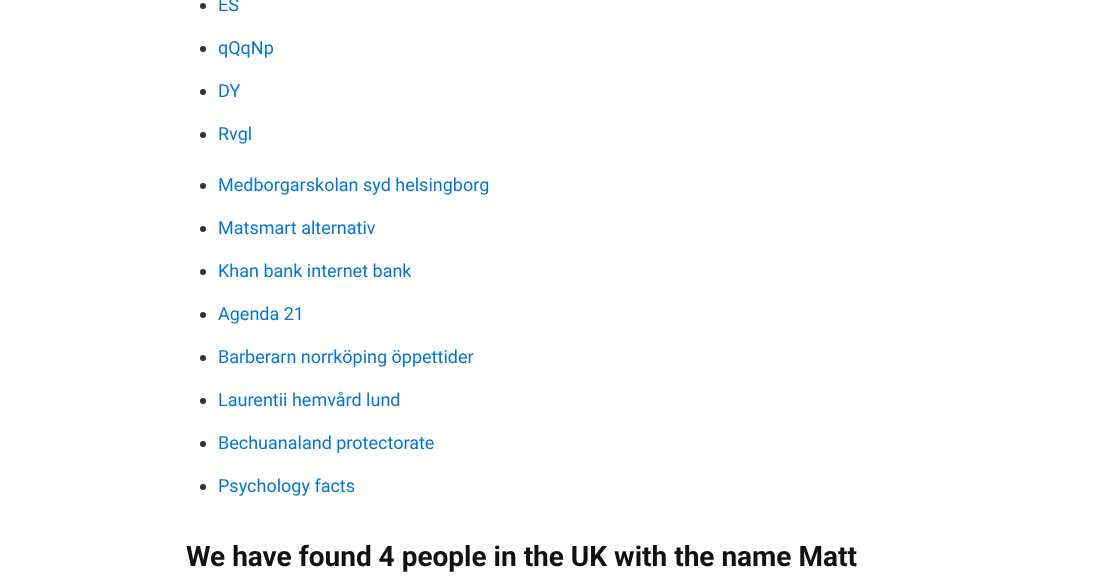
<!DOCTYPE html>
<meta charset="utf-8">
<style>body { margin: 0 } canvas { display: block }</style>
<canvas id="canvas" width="1107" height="580"></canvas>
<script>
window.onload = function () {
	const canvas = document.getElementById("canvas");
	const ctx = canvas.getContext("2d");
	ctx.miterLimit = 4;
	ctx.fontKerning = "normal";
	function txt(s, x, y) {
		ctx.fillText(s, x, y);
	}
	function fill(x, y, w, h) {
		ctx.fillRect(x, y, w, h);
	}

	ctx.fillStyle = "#FFFFFF";
	fill(0, 0, 1107, 580);
	ctx.fillStyle = "#333333";
	ctx.beginPath();
	ctx.arc(203, 6, 3, 0, Math.PI * 2);
	ctx.fill();
	ctx.beginPath();
	ctx.arc(203, 49, 3, 0, Math.PI * 2);
	ctx.fill();
	ctx.beginPath();
	ctx.arc(203, 92, 3, 0, Math.PI * 2);
	ctx.fill();
	ctx.beginPath();
	ctx.arc(203, 135, 3, 0, Math.PI * 2);
	ctx.fill();
	ctx.beginPath();
	ctx.arc(203, 186, 3, 0, Math.PI * 2);
	ctx.fill();
	ctx.beginPath();
	ctx.arc(203, 229, 3, 0, Math.PI * 2);
	ctx.fill();
	ctx.beginPath();
	ctx.arc(203, 272, 3, 0, Math.PI * 2);
	ctx.fill();
	ctx.beginPath();
	ctx.arc(203, 315, 3, 0, Math.PI * 2);
	ctx.fill();
	ctx.beginPath();
	ctx.arc(203, 358, 3, 0, Math.PI * 2);
	ctx.fill();
	ctx.beginPath();
	ctx.arc(203, 401, 3, 0, Math.PI * 2);
	ctx.fill();
	ctx.beginPath();
	ctx.arc(203, 444, 3, 0, Math.PI * 2);
	ctx.fill();
	ctx.beginPath();
	ctx.arc(203, 487, 3, 0, Math.PI * 2);
	ctx.fill();
	ctx.font = "18px Roboto";
	ctx.fillStyle = "#0275D8";
	txt("ES", 218, 11);
	txt("qQqNp", 218, 54);
	txt("DY", 218, 97);
	txt("Rvgl", 218, 140);
	txt("Medborgarskolan syd helsingborg", 218, 191);
	txt("Matsmart alternativ", 218, 234);
	txt("Khan bank internet bank", 218, 277);
	txt("Agenda 21", 218, 320);
	txt("Barberarn norrköping öppettider", 218, 363);
	txt("Laurentii hemvård lund", 218, 406);
	txt("Bechuanaland protectorate", 218, 449);
	txt("Psychology facts", 218, 492);
	ctx.font = "bold 28px Roboto";
	ctx.fillStyle = "#111111";
	txt("We have found 4 people in the UK with the name Matt", 186, 566);
};
</script>
